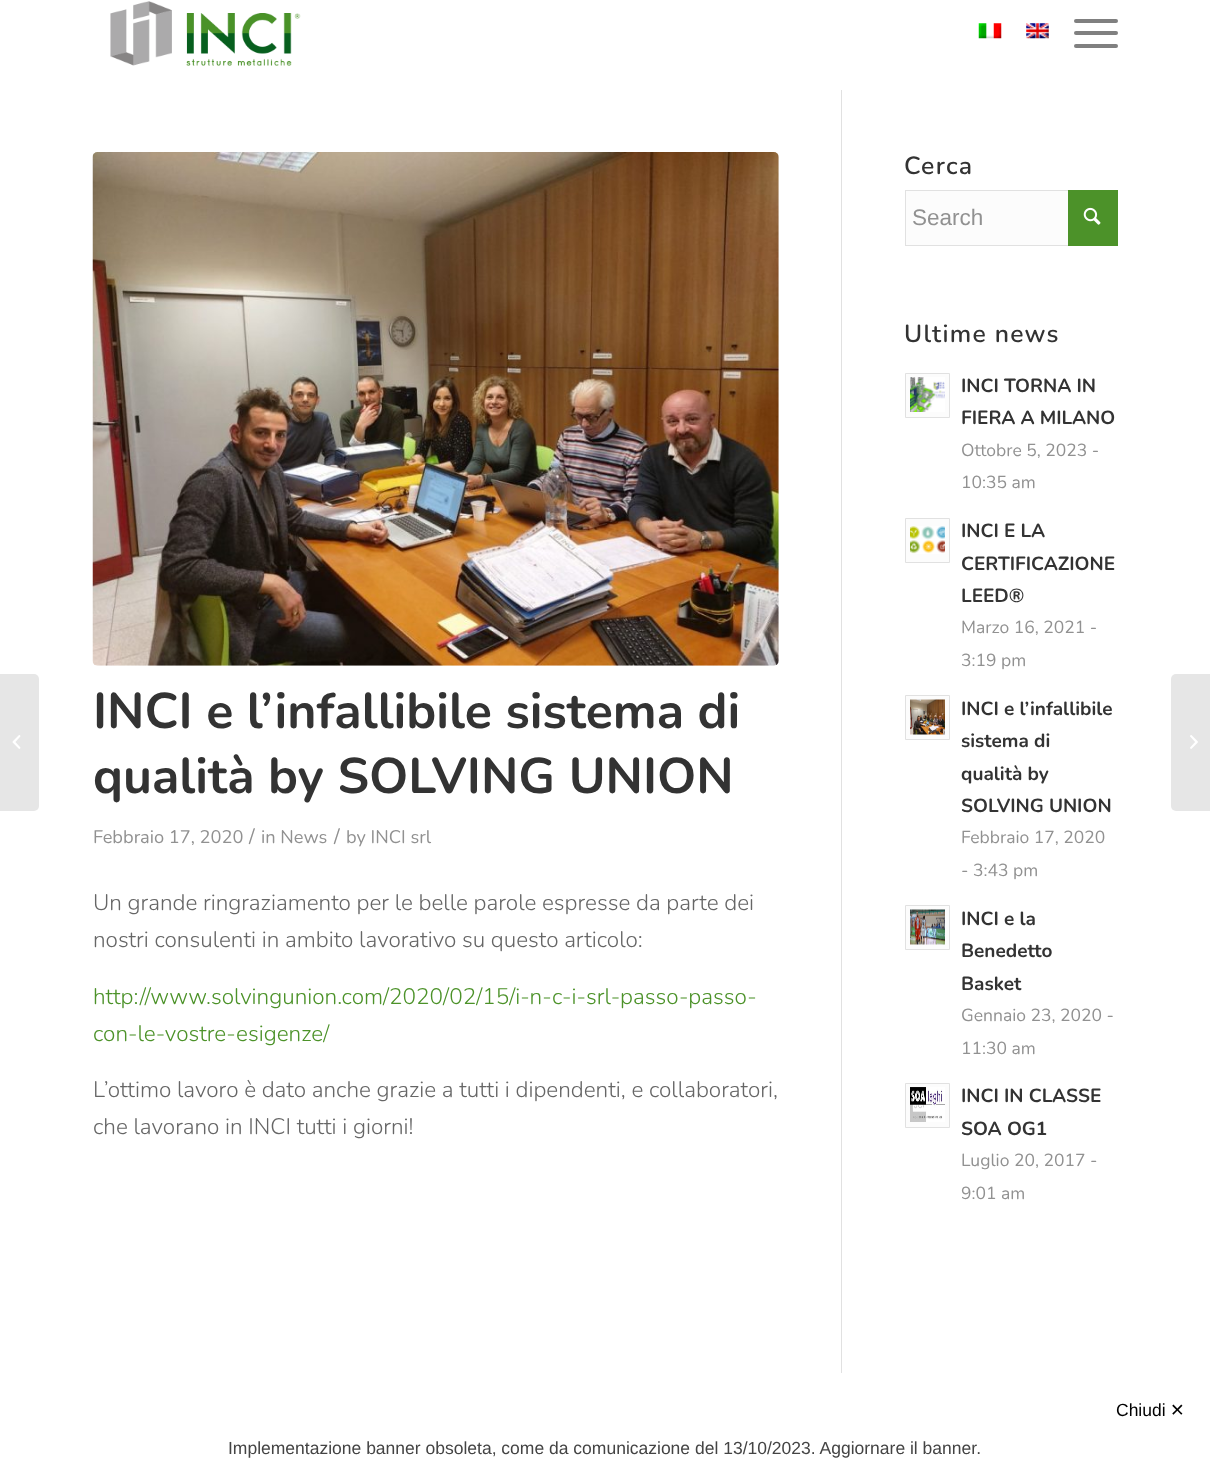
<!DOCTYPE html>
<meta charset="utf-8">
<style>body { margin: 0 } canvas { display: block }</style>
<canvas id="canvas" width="1210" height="1484"></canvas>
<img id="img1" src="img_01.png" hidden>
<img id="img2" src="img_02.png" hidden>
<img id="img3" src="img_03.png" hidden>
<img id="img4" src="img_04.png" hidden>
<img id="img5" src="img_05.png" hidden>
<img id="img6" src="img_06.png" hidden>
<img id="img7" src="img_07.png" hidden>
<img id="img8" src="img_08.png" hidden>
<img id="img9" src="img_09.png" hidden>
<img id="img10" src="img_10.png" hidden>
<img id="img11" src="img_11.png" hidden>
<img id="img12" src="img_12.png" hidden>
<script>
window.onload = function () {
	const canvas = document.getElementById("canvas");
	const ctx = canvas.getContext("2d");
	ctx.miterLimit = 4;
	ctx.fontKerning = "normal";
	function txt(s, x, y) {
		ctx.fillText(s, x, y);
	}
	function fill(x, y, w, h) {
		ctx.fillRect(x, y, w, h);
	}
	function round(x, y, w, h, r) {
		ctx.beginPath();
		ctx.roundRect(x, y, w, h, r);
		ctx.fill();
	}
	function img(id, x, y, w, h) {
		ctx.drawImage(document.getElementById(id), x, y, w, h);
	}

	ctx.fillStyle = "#FFFFFF";
	fill(0, 0, 1210, 1484);
	img("img1", 110, 1, 191, 65);
	img("img2", 978, 23, 24, 16);
	img("img3", 1026, 23, 23, 16);
	ctx.fillStyle = "#808080";
	round(1074, 31, 44, 4, 2);
	round(1074, 19, 44, 4, 2);
	round(1074, 44, 44, 4, 2);
	ctx.fillStyle = "#E6E6E6";
	ctx.beginPath();
	ctx.roundRect(0, 674, 39, 137, [0, 5, 5, 0]);
	ctx.fill();
	img("img4", 12, 735, 9, 14);
	ctx.fillStyle = "#E1E1E1";
	fill(841, 90, 1, 1283);
	img("img5", 92, 152, 687, 514);
	ctx.fillStyle = "#FCFCFC";
	fill(906, 191, 162, 54);
	ctx.strokeStyle = "#E1E1E1";
	ctx.strokeRect(905.5, 190.5, 212, 55);
	ctx.fillStyle = "#4C9229";
	fill(1068, 190, 50, 56);
	img("img6", 1083, 207, 18, 18);
	ctx.fillStyle = "#FCFCFC";
	ctx.beginPath();
	ctx.rect(905.5, 373.5, 44, 44);
	ctx.fill();
	ctx.stroke();
	img("img7", 910, 377, 35, 35);
	ctx.beginPath();
	ctx.rect(905.5, 518.5, 44, 44);
	ctx.fill();
	ctx.stroke();
	img("img8", 910, 526, 35, 28);
	ctx.beginPath();
	ctx.rect(905.5, 695.5, 44, 44);
	ctx.fill();
	ctx.stroke();
	img("img9", 910, 699, 35, 36);
	ctx.beginPath();
	ctx.rect(905.5, 905.5, 44, 44);
	ctx.fill();
	ctx.stroke();
	img("img10", 910, 909, 35, 36);
	ctx.beginPath();
	ctx.rect(905.5, 1083.5, 44, 44);
	ctx.fill();
	ctx.stroke();
	img("img11", 910, 1087, 35, 35);
	ctx.fillStyle = "#E6E6E6";
	ctx.beginPath();
	ctx.roundRect(1171, 674, 39, 137, [5, 0, 0, 5]);
	ctx.fill();
	img("img12", 1190, 735, 8, 14);
	ctx.font = "bold 50px Nunito";
	ctx.fillStyle = "#333333";
	txt("INCI e l’infallibile sistema di", 93, 728);
	txt("qualità by SOLVING UNION", 93, 793);
	ctx.font = "18.25px Nunito";
	ctx.fillStyle = "#919191";
	txt("Febbraio 17, 2020", 93, 843);
	ctx.font = "20px Nunito";
	txt("/", 249, 843);
	ctx.font = "18.25px Nunito";
	txt("in News", 261, 843);
	ctx.font = "20px Nunito";
	txt("/", 334, 843);
	ctx.font = "18.25px Nunito";
	txt("by INCI srl", 346, 843);
	ctx.font = "300 22.5px Nunito";
	ctx.fillStyle = "#666666";
	txt("Un grande ringraziamento per le belle parole espresse da parte dei", 93, 910);
	txt("nostri consulenti in ambito lavorativo su questo articolo:", 93, 947);
	ctx.fillStyle = "#4C9229";
	txt("http://www.solvingunion.com/2020/02/15/i-n-c-i-srl-passo-passo-", 93, 1004);
	txt("con-le-vostre-esigenze/", 93, 1041);
	ctx.fillStyle = "#666666";
	txt("L’ottimo lavoro è dato anche grazie a tutti i dipendenti, e collaboratori,", 93, 1097);
	txt("che lavorano in INCI tutti i giorni!", 93, 1134);
	ctx.letterSpacing = "1.25px";
	ctx.font = "600 24.75px Nunito";
	ctx.fillStyle = "#333333";
	txt("Cerca", 904, 174);
	ctx.letterSpacing = "0px";
	ctx.font = "22.5px Liberation Sans";
	ctx.fillStyle = "#919191";
	txt("Search", 912, 225);
	ctx.letterSpacing = "1.25px";
	ctx.font = "600 24.75px Nunito";
	ctx.fillStyle = "#333333";
	txt("Ultime news", 904, 342);
	ctx.letterSpacing = "0px";
	ctx.font = "bold 19px Nunito";
	txt("INCI TORNA IN", 961, 392);
	txt("FIERA A MILANO", 961, 424);
	ctx.font = "17.5px Nunito";
	ctx.fillStyle = "#919191";
	txt("Ottobre 5, 2023 -", 961, 456);
	txt("10:35 am", 961, 488);
	ctx.font = "bold 19px Nunito";
	ctx.fillStyle = "#333333";
	txt("INCI E LA", 961, 537);
	txt("CERTIFICAZIONE", 961, 570);
	txt("LEED®", 961, 602);
	ctx.font = "17.5px Nunito";
	ctx.fillStyle = "#919191";
	txt("Marzo 16, 2021 -", 961, 633);
	txt("3:19 pm", 961, 666);
	ctx.font = "bold 19px Nunito";
	ctx.fillStyle = "#333333";
	txt("INCI e l’infallibile", 961, 715);
	txt("sistema di", 961, 747);
	txt("qualità by", 961, 780);
	txt("SOLVING UNION", 961, 812);
	ctx.font = "17.5px Nunito";
	ctx.fillStyle = "#919191";
	txt("Febbraio 17, 2020", 961, 843);
	txt("- 3:43 pm", 961, 876);
	ctx.font = "bold 19px Nunito";
	ctx.fillStyle = "#333333";
	txt("INCI e la", 961, 925);
	txt("Benedetto", 961, 957);
	txt("Basket", 961, 990);
	ctx.font = "17.5px Nunito";
	ctx.fillStyle = "#919191";
	txt("Gennaio 23, 2020 -", 961, 1021);
	txt("11:30 am", 961, 1054);
	ctx.font = "bold 19px Nunito";
	ctx.fillStyle = "#333333";
	txt("INCI IN CLASSE", 961, 1102);
	txt("SOA OG1", 961, 1135);
	ctx.font = "17.5px Nunito";
	ctx.fillStyle = "#919191";
	txt("Luglio 20, 2017 -", 961, 1166);
	txt("9:01 am", 961, 1199);
	ctx.font = "17.5px Liberation Sans";
	ctx.fillStyle = "#000000";
	txt("Chiudi", 1116, 1416);
	ctx.font = "17.5px DejaVu Sans";
	txt("✕", 1170, 1416);
	ctx.font = "17.5px Liberation Sans";
	ctx.fillStyle = "#444444";
	txt("Implementazione banner obsoleta, come da comunicazione del 13/10/2023. Aggiornare il banner.", 228, 1454);
};
</script>
